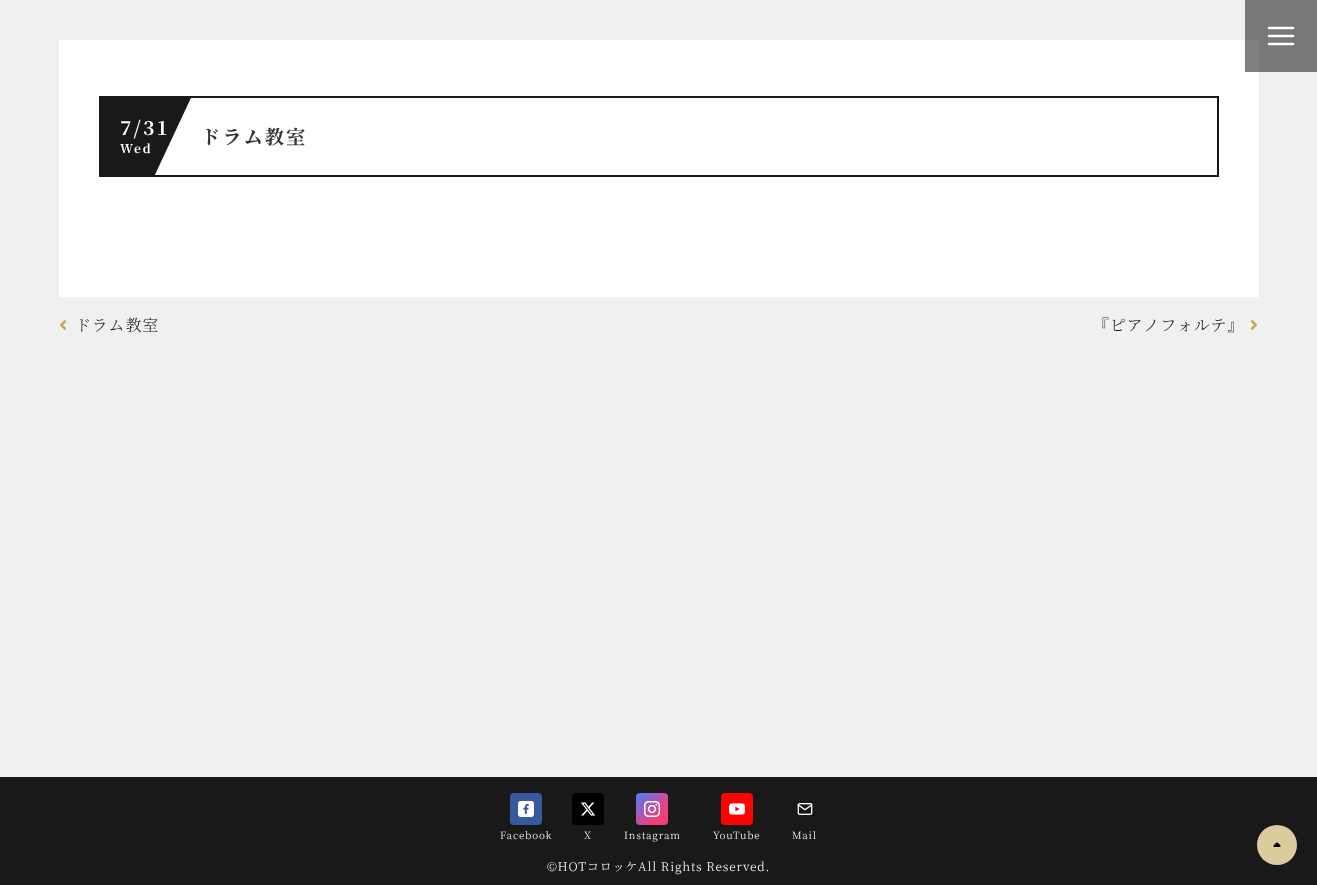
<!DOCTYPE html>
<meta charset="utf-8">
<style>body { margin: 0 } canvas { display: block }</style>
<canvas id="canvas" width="1317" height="885"></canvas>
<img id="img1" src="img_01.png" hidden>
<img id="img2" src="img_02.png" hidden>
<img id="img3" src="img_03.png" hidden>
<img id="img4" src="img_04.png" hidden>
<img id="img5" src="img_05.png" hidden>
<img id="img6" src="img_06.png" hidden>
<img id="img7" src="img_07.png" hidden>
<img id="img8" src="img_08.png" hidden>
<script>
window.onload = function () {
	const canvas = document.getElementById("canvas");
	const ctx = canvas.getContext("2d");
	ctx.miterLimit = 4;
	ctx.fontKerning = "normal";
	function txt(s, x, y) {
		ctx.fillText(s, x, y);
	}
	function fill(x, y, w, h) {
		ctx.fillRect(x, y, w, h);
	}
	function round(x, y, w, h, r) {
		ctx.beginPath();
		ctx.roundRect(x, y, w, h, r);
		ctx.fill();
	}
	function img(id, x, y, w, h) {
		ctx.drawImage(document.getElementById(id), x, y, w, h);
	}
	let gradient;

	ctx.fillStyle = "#F0F0F0";
	fill(0, 0, 1317, 885);
	ctx.fillStyle = "#787878";
	fill(1245, 0, 72, 72);
	ctx.beginPath();
	ctx.moveTo(1269, 36);
	ctx.lineTo(1293, 36);
	ctx.moveTo(1269, 28);
	ctx.lineTo(1293, 28);
	ctx.moveTo(1269, 44);
	ctx.lineTo(1293, 44);
	ctx.strokeStyle = "#FFFFFF";
	ctx.lineWidth = 2.7;
	ctx.lineCap = "round";
	ctx.lineJoin = "round";
	ctx.stroke();
	ctx.fillStyle = "#FFFFFF";
	fill(59, 40, 1200, 257);
	ctx.fillStyle = "#808080";
	fill(1245, 40, 14, 32);
	ctx.strokeStyle = "#191919";
	ctx.lineWidth = 2;
	ctx.lineJoin = "miter";
	ctx.strokeRect(100, 97, 1118, 79);
	ctx.save();
	ctx.beginPath();
	ctx.rect(101, 98, 1116, 77);
	ctx.clip();
	ctx.fillStyle = "#191919";
	ctx.beginPath();
	ctx.moveTo(39, -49);
	ctx.lineTo(220, 36);
	ctx.lineTo(122, 245);
	ctx.lineTo(-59, 160);
	ctx.closePath();
	ctx.fill();
	ctx.restore();
	img("img1", 59, 320, 8, 10);
	img("img2", 1250, 320, 8, 10);
	ctx.fillStyle = "#191919";
	fill(0, 777, 1317, 108);
	ctx.fillStyle = "#39599F";
	round(510, 793, 32, 32, 4);
	img("img3", 518, 801, 16, 16);
	ctx.fillStyle = "#000000";
	round(572, 793, 32, 32, 4);
	img("img4", 581, 802, 15, 14);
	gradient = ctx.createLinearGradient(636, 793, 668, 825);
	gradient.addColorStop(0, "#427EFF");
	gradient.addColorStop(0.7, "#F13F79");
	ctx.fillStyle = gradient;
	round(636, 793, 32, 32, 4);
	img("img5", 644, 801, 16, 16);
	ctx.fillStyle = "#FE0202";
	round(721, 793, 32, 32, 4);
	img("img6", 729, 803, 16, 12);
	img("img7", 797, 803, 16, 12);
	ctx.fillStyle = "#DBCC9E";
	ctx.beginPath();
	ctx.arc(1277, 845, 20, 0, Math.PI * 2);
	ctx.fill();
	img("img8", 1273, 842, 8, 5);
	ctx.letterSpacing = "2px";
	ctx.font = "bold 19.25px Noto Serif JP";
	ctx.fillStyle = "#FFFFFF";
	txt("7/31", 120, 135);
	ctx.font = "bold 12px Noto Serif JP";
	txt("Wed", 120, 153);
	ctx.font = "bold 19.25px Noto Serif JP";
	ctx.fillStyle = "#333333";
	txt("ドラム教室", 201, 144);
	ctx.letterSpacing = "0.8px";
	ctx.font = "300 16px Noto Serif JP";
	ctx.fillStyle = "#191919";
	txt("ドラム教室", 75, 331);
	txt("『ピアノフォルテ』", 1093, 331);
	ctx.font = "300 10px Noto Serif JP";
	ctx.fillStyle = "#FFFFFF";
	txt("Facebook", 500, 839);
	txt("X", 584, 839);
	txt("Instagram", 624, 839);
	txt("YouTube", 713, 839);
	txt("Mail", 792, 839);
	ctx.font = "300 12px Noto Serif JP";
	txt("©HOTコロッケAll Rights Reserved.", 547, 871);
};
</script>
